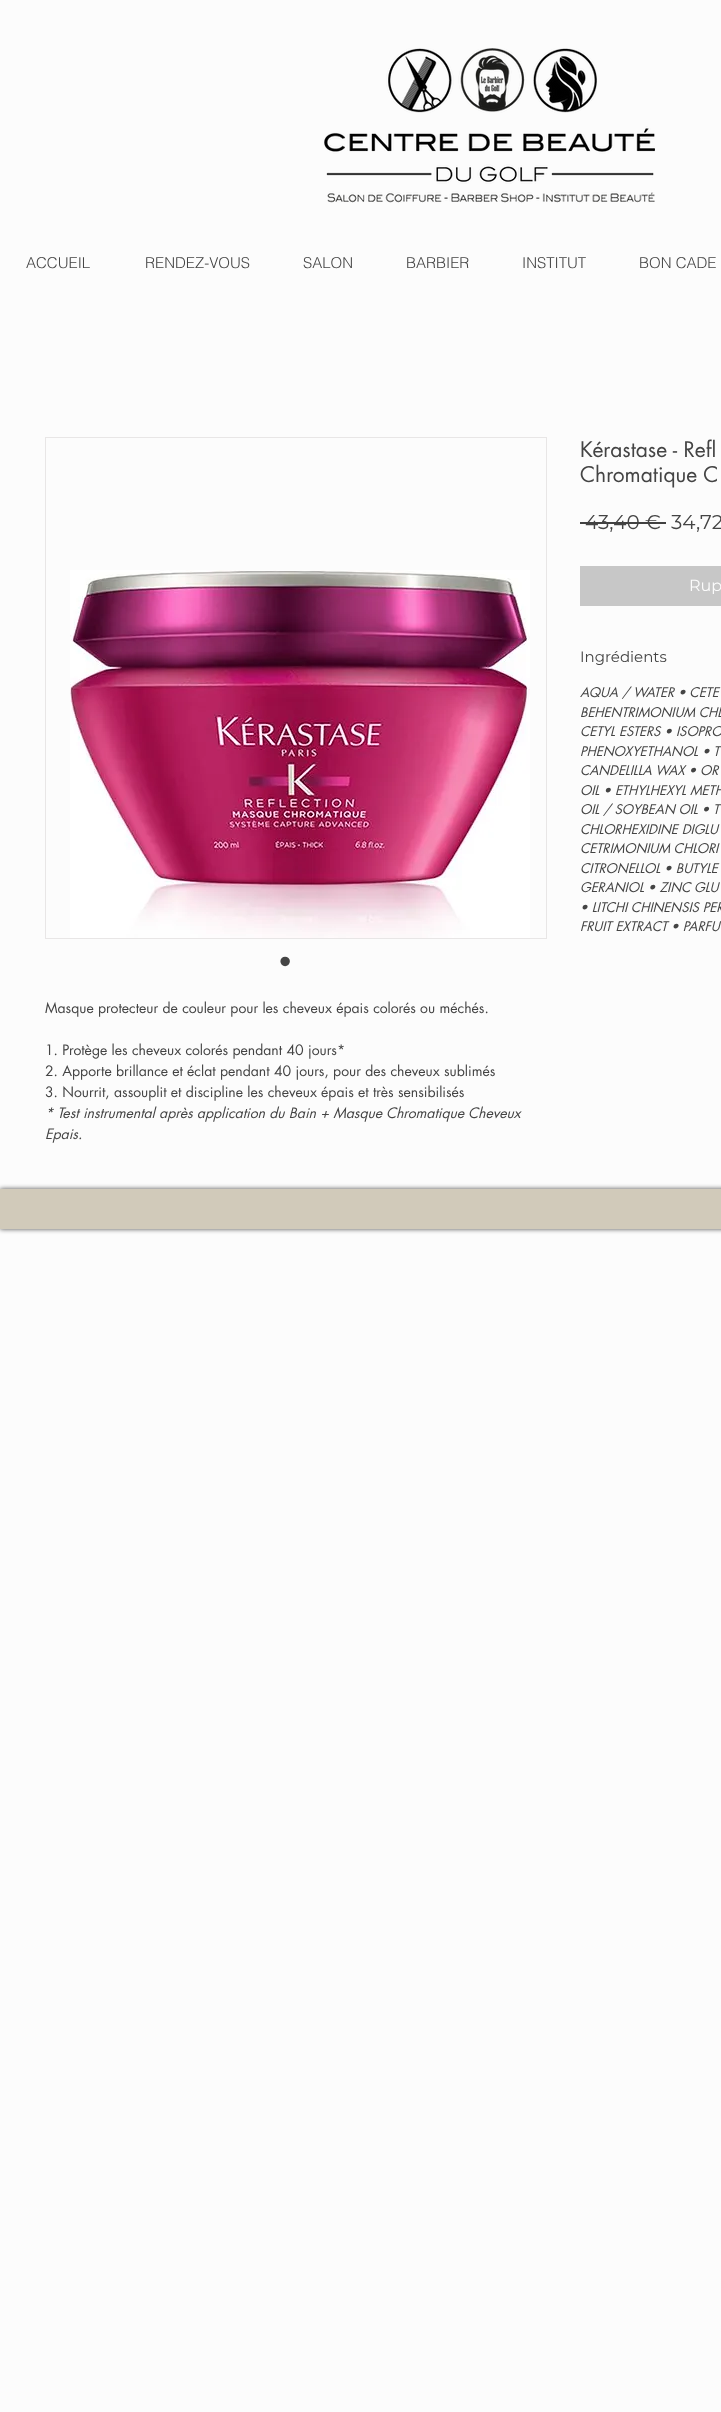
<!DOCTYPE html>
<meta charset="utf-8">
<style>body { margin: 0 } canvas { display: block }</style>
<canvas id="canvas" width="721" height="2412"></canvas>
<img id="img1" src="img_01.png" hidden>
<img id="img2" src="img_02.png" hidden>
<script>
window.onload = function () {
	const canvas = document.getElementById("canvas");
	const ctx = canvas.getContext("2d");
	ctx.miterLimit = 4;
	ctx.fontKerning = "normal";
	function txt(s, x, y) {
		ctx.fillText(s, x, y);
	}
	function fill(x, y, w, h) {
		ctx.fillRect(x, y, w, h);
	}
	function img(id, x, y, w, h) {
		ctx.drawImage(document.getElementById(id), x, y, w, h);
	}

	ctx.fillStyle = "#FCFCFC";
	fill(0, 0, 721, 2412);
	img("img1", 324, 48, 331, 155);
	ctx.fillStyle = "#C7C7C7";
	fill(580, 566, 141, 40);
	ctx.strokeStyle = "#E8E6E6";
	ctx.strokeRect(45.5, 437.5, 501, 501);
	img("img2", 70, 570, 460, 368);
	ctx.fillStyle = "rgba(0, 0, 0, 0.7)";
	ctx.filter = "blur(2.5px)";
	ctx.beginPath();
	ctx.rect(0, 1189, 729, 40);
	ctx.fill();
	ctx.filter = "none";
	ctx.fillStyle = "#D1CABA";
	fill(0, 1189, 721, 40);
	ctx.font = "300 15px helvetica";
	ctx.fillStyle = "#444444";
	txt("ACCUEIL", 26, 268);
	txt("RENDEZ-VOUS", 145, 268);
	txt("SALON", 303, 268);
	txt("BARBIER", 406, 268);
	txt("INSTITUT", 522, 268);
	txt("BON CADE", 639, 268);
	ctx.font = "21px futura";
	txt("Kérastase - Refl", 580, 457);
	txt("Chromatique C", 580, 482);
	ctx.font = "20px Montserrat";
	txt("43,40 €", 585, 529);
	ctx.fillStyle = "#414141";
	fill(580, 522, 86, 2);
	ctx.fillStyle = "#444444";
	txt("34,72", 671, 529);
	ctx.font = "16px Montserrat";
	ctx.fillStyle = "#FCFCFC";
	txt("Rup", 689, 591);
	ctx.font = "15px Montserrat";
	ctx.fillStyle = "#444444";
	txt("Ingrédients", 580, 662);
	ctx.font = "italic 13px futura";
	txt("AQUA / WATER • CETE", 580, 697);
	txt("BEHENTRIMONIUM CHL", 580, 717);
	txt("CETYL ESTERS • ISOPRO", 580, 736);
	txt("PHENOXYETHANOL • T", 580, 756);
	txt("CANDELILLA WAX • OR", 580, 775);
	txt("OIL • ETHYLHEXYL METH", 580, 795);
	txt("OIL / SOYBEAN OIL • T", 580, 814);
	txt("CHLORHEXIDINE DIGLU", 580, 834);
	txt("CETRIMONIUM CHLORI", 580, 853);
	txt("CITRONELLOL • BUTYLE", 580, 873);
	txt("GERANIOL • ZINC GLU", 580, 892);
	txt("• LITCHI CHINENSIS PER", 580, 912);
	txt("FRUIT EXTRACT • PARFU", 580, 931);
	ctx.font = "35px Liberation Sans";
	txt("•", 279, 973);
	ctx.font = "14px futura";
	txt("Masque protecteur de couleur pour les cheveux épais colorés ou méchés.", 45, 1013);
	txt("1. Protège les cheveux colorés pendant 40 jours*", 45, 1055);
	txt("2. Apporte brillance et éclat pendant 40 jours, pour des cheveux sublimés", 45, 1076);
	txt("3. Nourrit, assouplit et discipline les cheveux épais et très sensibilisés", 45, 1097);
	ctx.font = "italic 14px futura";
	txt("* Test instrumental après application du Bain + Masque Chromatique Cheveux", 45, 1118);
	txt("Epais.", 45, 1139);
};
</script>
